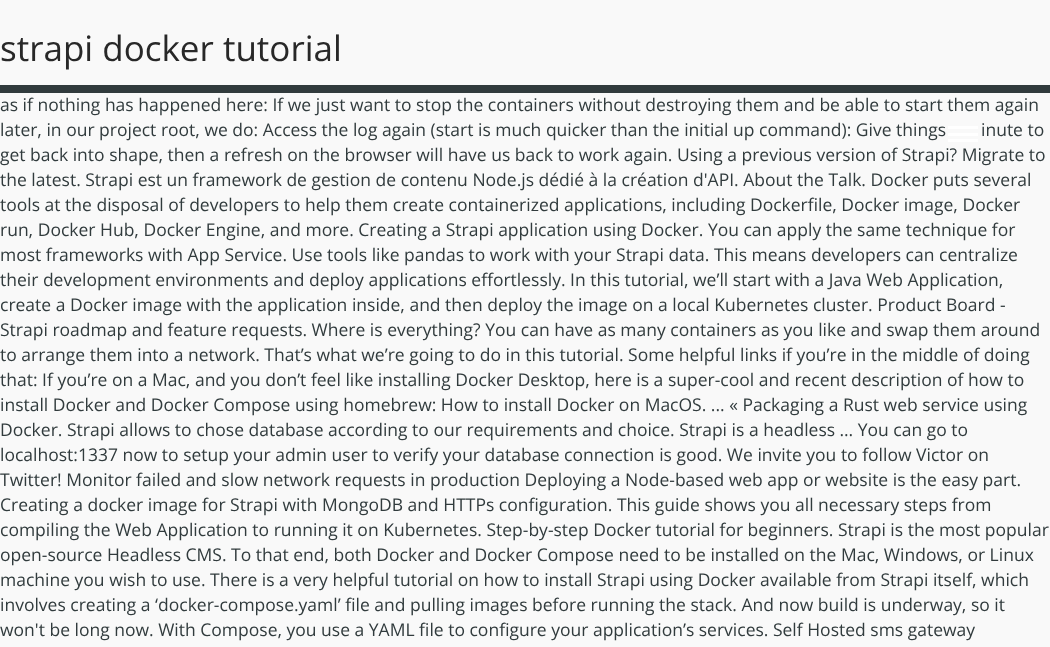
<!DOCTYPE html>
<meta charset="utf-8">
<style>body { margin: 0 } canvas { display: block }</style>
<canvas id="canvas" width="1050" height="647"></canvas>
<script>
window.onload = function () {
	const canvas = document.getElementById("canvas");
	const ctx = canvas.getContext("2d");
	ctx.miterLimit = 4;
	ctx.fontKerning = "normal";
	function txt(s, x, y) {
		ctx.fillText(s, x, y);
	}
	function fill(x, y, w, h) {
		ctx.fillRect(x, y, w, h);
	}

	ctx.fillStyle = "#F9F9F9";
	fill(0, 0, 1050, 647);
	ctx.fillStyle = "#313B3D";
	fill(0, 85, 1050, 8);
	ctx.fillStyle = "#FFFFFF";
	fill(948, 133, 30, 3);
	fill(948, 126, 30, 3);
	fill(948, 139, 30, 3);
	ctx.font = "35px Open Sans";
	ctx.fillStyle = "#282828";
	txt("strapi docker tutorial", 0, 61);
	ctx.font = "17.5px Open Sans";
	ctx.fillStyle = "#313B3D";
	txt("as if nothing has happened here: If we just want to stop the containers without destroying them and be able to start them again", 0, 111);
	txt("later, in our project root, we do: Access the log again (start is much quicker than the initial up command): Give things", 0, 136);
	txt("inute to", 981, 136);
	txt("get back into shape, then a refresh on the browser will have us back to work again. Using a previous version of Strapi? Migrate to", 0, 161);
	txt("the latest. Strapi est un framework de gestion de contenu Node.js dédié à la création d'API. About the Talk. Docker puts several", 0, 186);
	txt("tools at the disposal of developers to help them create containerized applications, including Dockerfile, Docker image, Docker", 0, 211);
	txt("run, Docker Hub, Docker Engine, and more. Creating a Strapi application using Docker. You can apply the same technique for", 0, 236);
	txt("most frameworks with App Service. Use tools like pandas to work with your Strapi data. This means developers can centralize", 0, 261);
	txt("their development environments and deploy applications effortlessly. In this tutorial, we’ll start with a Java Web Application,", 0, 286);
	txt("create a Docker image with the application inside, and then deploy the image on a local Kubernetes cluster. Product Board -", 0, 311);
	txt("Strapi roadmap and feature requests. Where is everything? You can have as many containers as you like and swap them around", 0, 336);
	txt("to arrange them into a network. That’s what we’re going to do in this tutorial. Some helpful links if you’re in the middle of doing", 0, 361);
	txt("that: If you’re on a Mac, and you don’t feel like installing Docker Desktop, here is a super-cool and recent description of how to", 0, 386);
	txt("install Docker and Docker Compose using homebrew: How to install Docker on MacOS. ... « Packaging a Rust web service using", 0, 411);
	txt("Docker. Strapi allows to chose database according to our requirements and choice. Strapi is a headless … You can go to", 0, 436);
	txt("localhost:1337 now to setup your admin user to verify your database connection is good. We invite you to follow Victor on", 0, 461);
	txt("Twitter! Monitor failed and slow network requests in production Deploying a Node-based web app or website is the easy part.", 0, 486);
	txt("Creating a docker image for Strapi with MongoDB and HTTPs configuration. This guide shows you all necessary steps from", 0, 511);
	txt("compiling the Web Application to running it on Kubernetes. Step-by-step Docker tutorial for beginners. Strapi is the most popular", 0, 536);
	txt("open-source Headless CMS. To that end, both Docker and Docker Compose need to be installed on the Mac, Windows, or Linux", 0, 561);
	txt("machine you wish to use. There is a very helpful tutorial on how to install Strapi using Docker available from Strapi itself, which", 0, 586);
	txt("involves creating a ‘docker-compose.yaml’ file and pulling images before running the stack. And now build is underway, so it", 0, 611);
	txt("won't be long now. With Compose, you use a YAML file to configure your application’s services. Self Hosted sms gateway", 0, 636);
};
</script>
